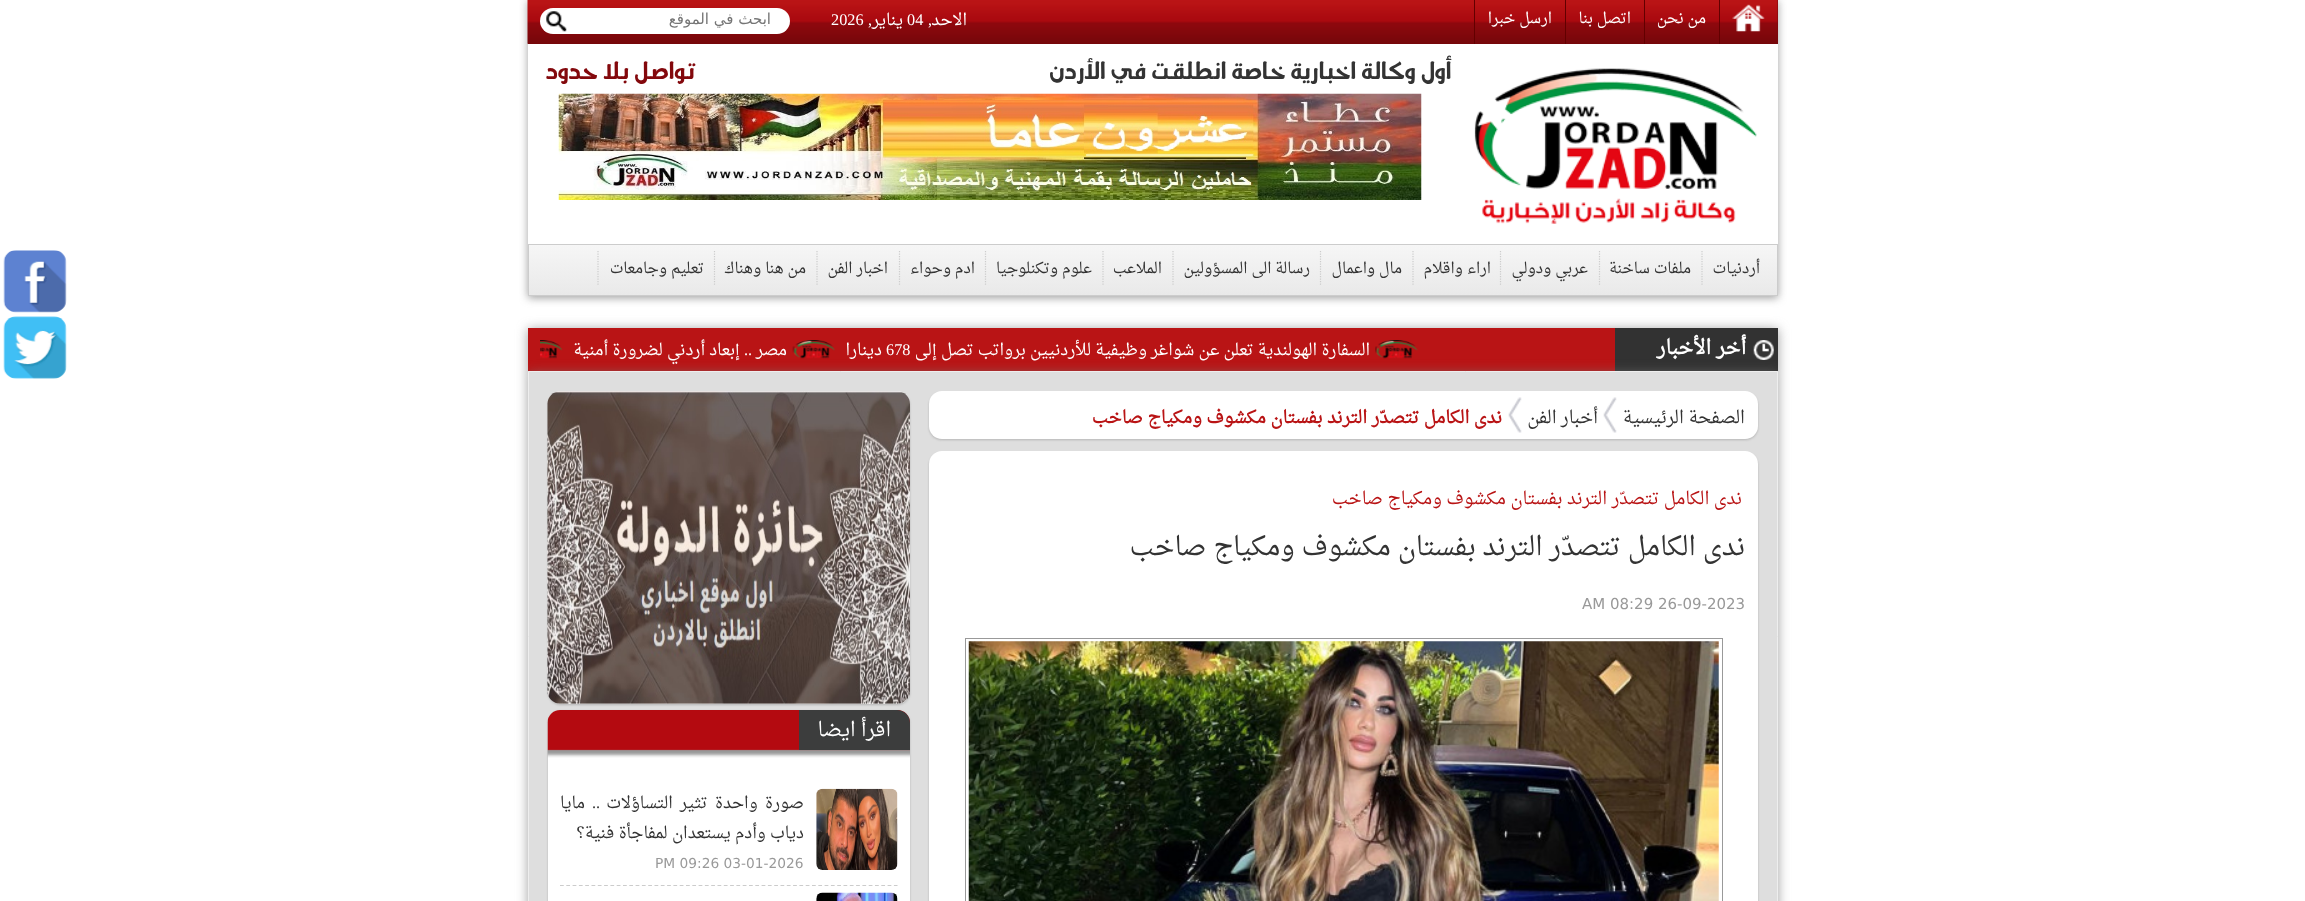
<!DOCTYPE html>
<meta charset="utf-8">
<style>body { margin: 0 } canvas { display: block }</style>
<canvas id="canvas" width="2305" height="901"></canvas>
<img id="img1" src="img_01.png" hidden>
<img id="img2" src="img_02.png" hidden>
<img id="img3" src="img_03.png" hidden>
<img id="img4" src="img_04.png" hidden>
<img id="img5" src="img_05.png" hidden>
<img id="img6" src="img_06.png" hidden>
<img id="img7" src="img_07.png" hidden>
<img id="img8" src="img_08.png" hidden>
<img id="img9" src="img_09.png" hidden>
<img id="img10" src="img_10.png" hidden>
<img id="img11" src="img_11.png" hidden>
<img id="img12" src="img_12.png" hidden>
<img id="img13" src="img_13.png" hidden>
<img id="img14" src="img_14.png" hidden>
<img id="img15" src="img_15.png" hidden>
<img id="img16" src="img_16.png" hidden>
<img id="img17" src="img_17.png" hidden>
<script>
window.onload = function () {
	const canvas = document.getElementById("canvas");
	const ctx = canvas.getContext("2d");
	ctx.miterLimit = 4;
	ctx.fontKerning = "normal";
	function txt(s, x, y) {
		ctx.fillText(s, x, y);
	}
	function fill(x, y, w, h) {
		ctx.fillRect(x, y, w, h);
	}
	function round(x, y, w, h, r) {
		ctx.beginPath();
		ctx.roundRect(x, y, w, h, r);
		ctx.fill();
	}
	function img(id, x, y, w, h) {
		ctx.drawImage(document.getElementById(id), x, y, w, h);
	}
	let gradient;

	ctx.fillStyle = "#FFFFFF";
	fill(0, 0, 2305, 901);
	ctx.fillStyle = "rgba(120, 120, 120, 0.7)";
	ctx.filter = "blur(4px)";
	ctx.beginPath();
	ctx.rect(528, 1, 1250, 297);
	ctx.fill();
	ctx.filter = "none";
	ctx.fillStyle = "#FFFFFF";
	fill(528, 44, 1250, 200);
	ctx.fillStyle = "#76070A";
	fill(528, 0, 1250, 44);
	img("img1", 527, 0, 1251, 44);
	ctx.fillStyle = "#620000";
	fill(1719, 0, 1, 44);
	img("img2", 1732, 4, 33, 28);
	fill(1644, 0, 1, 44);
	fill(1565, 0, 1, 44);
	fill(1474, 0, 1, 44);
	ctx.fillStyle = "#FFFFFF";
	round(540, 8, 250, 26, 13);
	img("img3", 546, 11, 21, 21);
	img("img4", 1474, 68, 283, 156);
	img("img5", 558, 93, 864, 107);
	gradient = ctx.createLinearGradient(1153, 245, 1153, 295);
	gradient.addColorStop(0, "#F6F6F6");
	gradient.addColorStop(1, "#E9E9E9");
	ctx.fillStyle = gradient;
	fill(529, 245, 1248, 50);
	ctx.strokeStyle = "#CCCCCC";
	ctx.strokeRect(528.5, 244.5, 1249, 51);
	ctx.beginPath();
	ctx.moveTo(1702, 251);
	ctx.lineTo(1702, 286);
	ctx.lineWidth = 1.2;
	ctx.setLineDash([1.25, 1.25]);
	ctx.stroke();
	ctx.beginPath();
	ctx.moveTo(1599.5, 251);
	ctx.lineTo(1599.5, 286);
	ctx.stroke();
	ctx.beginPath();
	ctx.moveTo(1500.5, 251);
	ctx.lineTo(1500.5, 286);
	ctx.stroke();
	ctx.beginPath();
	ctx.moveTo(1413, 251);
	ctx.lineTo(1413, 286);
	ctx.stroke();
	ctx.beginPath();
	ctx.moveTo(1320.5, 251);
	ctx.lineTo(1320.5, 286);
	ctx.stroke();
	ctx.beginPath();
	ctx.moveTo(1173, 251);
	ctx.lineTo(1173, 286);
	ctx.stroke();
	ctx.beginPath();
	ctx.moveTo(1103, 251);
	ctx.lineTo(1103, 286);
	ctx.stroke();
	ctx.beginPath();
	ctx.moveTo(985.5, 251);
	ctx.lineTo(985.5, 286);
	ctx.stroke();
	ctx.beginPath();
	ctx.moveTo(899.5, 251);
	ctx.lineTo(899.5, 286);
	ctx.stroke();
	ctx.beginPath();
	ctx.moveTo(817, 251);
	ctx.lineTo(817, 286);
	ctx.stroke();
	ctx.beginPath();
	ctx.moveTo(714.5, 251);
	ctx.lineTo(714.5, 286);
	ctx.stroke();
	ctx.beginPath();
	ctx.moveTo(598, 251);
	ctx.lineTo(598, 286);
	ctx.stroke();
	ctx.fillStyle = "rgba(120, 120, 120, 0.7)";
	ctx.filter = "blur(6px)";
	ctx.beginPath();
	ctx.rect(528, 329, 1250, 44);
	ctx.fill();
	ctx.filter = "none";
	ctx.fillStyle = "#323232";
	fill(1615, 328, 163, 43);
	img("img6", 1753, 340, 21, 20);
	ctx.fillStyle = "#B91415";
	fill(528, 328, 1087, 43);
	img("img7", 1375, 340, 43, 19);
	img("img8", 792, 340, 43, 19);
	img("img9", 540, 340, 23, 19);
	ctx.fillStyle = "rgba(120, 120, 120, 0.7)";
	ctx.filter = "blur(6px)";
	ctx.beginPath();
	ctx.rect(528, 373, 1250, 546);
	ctx.fill();
	ctx.filter = "none";
	ctx.fillStyle = "#DEDEDE";
	ctx.beginPath();
	ctx.rect(528.5, 371.5, 1249, 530);
	ctx.fill();
	ctx.strokeStyle = "#EEEEEE";
	ctx.lineWidth = 1;
	ctx.setLineDash([]);
	ctx.stroke();
	ctx.fillStyle = "rgba(120, 120, 120, 0.4)";
	ctx.filter = "blur(1px)";
	ctx.beginPath();
	ctx.roundRect(929, 393, 829, 47, 13);
	ctx.fill();
	ctx.filter = "none";
	ctx.fillStyle = "#FFFFFF";
	round(929, 391, 829, 48, 13);
	img("img10", 1603, 397, 14, 36);
	img("img10", 1508, 397, 14, 36);
	ctx.fillStyle = "rgba(120, 120, 120, 0.4)";
	ctx.filter = "blur(1px)";
	ctx.beginPath();
	ctx.roundRect(929, 453, 829, 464, 13);
	ctx.fill();
	ctx.filter = "none";
	ctx.fillStyle = "#FFFFFF";
	round(929, 451, 829, 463, 13);
	ctx.strokeStyle = "#999999";
	ctx.strokeRect(965.5, 638.5, 757, 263);
	img("img11", 968, 641, 751, 260);
	ctx.fillStyle = "rgba(120, 120, 120, 0.4)";
	ctx.filter = "blur(1px)";
	ctx.beginPath();
	ctx.roundRect(548, 393, 362, 312, 13);
	ctx.fill();
	ctx.filter = "none";
	ctx.fillStyle = "#FFFFFF";
	round(548, 391, 362, 313, 13);
	img("img12", 547, 391, 363, 313);
	ctx.fillStyle = "rgba(120, 120, 120, 0.4)";
	ctx.filter = "blur(1px)";
	ctx.beginPath();
	ctx.roundRect(548, 711, 362, 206, 13);
	ctx.fill();
	ctx.filter = "none";
	ctx.fillStyle = "#FFFFFF";
	round(548, 710, 362, 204, 13);
	img("img13", 547, 710, 363, 48);
	ctx.fillStyle = "#3C3D3D";
	ctx.beginPath();
	ctx.roundRect(799, 710, 111, 40, [0, 13, 0, 0]);
	ctx.fill();
	ctx.beginPath();
	ctx.moveTo(560, 885.5);
	ctx.lineTo(897.5, 885.5);
	ctx.strokeStyle = "#CCCCCC";
	ctx.lineWidth = 1.2;
	ctx.setLineDash([3.75, 2.55]);
	ctx.stroke();
	img("img14", 816, 788, 82, 82);
	img("img15", 816, 892, 82, 9);
	img("img16", 3, 250, 64, 63);
	img("img17", 3, 316, 64, 63);
	ctx.direction = "rtl";
	ctx.font = "15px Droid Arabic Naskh";
	ctx.fillStyle = "#FFFFFF";
	txt("من نحن", 1706, 23);
	txt("اتصل بنا", 1631, 23);
	txt("ارسل خبرا", 1552, 23);
	ctx.font = "16.25px Droid Arabic Naskh";
	txt("الاحد", 967, 25);
	ctx.font = "16.25px Liberation Serif";
	txt(",", 932, 25);
	ctx.direction = "ltr";
	txt("04", 907, 25);
	ctx.direction = "rtl";
	ctx.font = "16.25px Droid Arabic Naskh";
	txt("يناير", 903, 25);
	ctx.font = "16.25px Liberation Serif";
	txt(",", 872, 25);
	ctx.direction = "ltr";
	txt("2026", 831, 25);
	ctx.direction = "rtl";
	ctx.font = "15px DejaVu Sans";
	ctx.fillStyle = "#757575";
	txt("ابحث في الموقع", 771, 24);
	ctx.font = "26.25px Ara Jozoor";
	ctx.fillStyle = "#333333";
	txt("أول وكالة اخبارية خاصة انطلقت في الأردن", 1452, 79);
	ctx.fillStyle = "#83080C";
	txt("تواصل بلا حدود", 696, 79);
	ctx.font = "15px Droid Arabic Naskh";
	ctx.fillStyle = "#333333";
	txt("أردنيات", 1760, 273);
	txt("ملفات ساخنة", 1691, 273);
	txt("عربي ودولي", 1588, 273);
	txt("اراء واقلام", 1491, 273);
	txt("مال واعمال", 1402, 273);
	txt("رسالة الى المسؤولين", 1310, 273);
	txt("الملاعب", 1162, 273);
	txt("علوم وتكنلوجيا", 1092, 273);
	txt("ادم وحواء", 975, 273);
	txt("اخبار الفن", 888, 273);
	txt("من هنا وهناك", 806, 273);
	txt("تعليم وجامعات", 704, 273);
	ctx.font = "bold 20px Droid Arabic Naskh";
	ctx.fillStyle = "#FFFFFF";
	txt("أخر الأخبار", 1746, 354);
	ctx.font = "16.25px Droid Arabic Naskh";
	txt("السفارة الهولندية تعلن عن شواغر وظيفية للأردنيين برواتب تصل إلى", 1370, 355);
	ctx.direction = "ltr";
	ctx.font = "16.25px Liberation Serif";
	txt("678", 886, 355);
	ctx.direction = "rtl";
	ctx.font = "16.25px Droid Arabic Naskh";
	txt("دينارا", 882, 355);
	txt("مصر", 787, 355);
	ctx.font = "16.25px Liberation Serif";
	txt("..", 752, 355);
	ctx.font = "16.25px Droid Arabic Naskh";
	txt("إبعاد أردني لضرورة أمنية", 740, 355);
	ctx.font = "17.5px Droid Arabic Naskh";
	ctx.fillStyle = "#333333";
	txt("الصفحة الرئيسية", 1745, 423);
	txt("أخبار الفن", 1598, 423);
	ctx.font = "bold 17.5px Droid Arabic Naskh";
	ctx.fillStyle = "#B91415";
	txt("ندى الكامل تتصدّر الترند بفستان مكشوف ومكياج صاخب", 1502, 423);
	ctx.font = "17.5px Droid Arabic Naskh";
	txt("ندى الكامل تتصدّر الترند بفستان مكشوف ومكياج صاخب", 1742, 504);
	ctx.font = "26.25px Droid Arabic Naskh";
	ctx.fillStyle = "#333333";
	txt("ندى الكامل تتصدّر الترند بفستان مكشوف ومكياج صاخب", 1745, 555);
	ctx.direction = "ltr";
	ctx.font = "15px DejaVu Sans";
	ctx.fillStyle = "#999999";
	txt("AM 08:29 26-09-2023", 1582, 609);
	ctx.direction = "rtl";
	ctx.font = "20px Droid Arabic Naskh";
	ctx.fillStyle = "#FFFFFF";
	txt("اقرأ ايضا", 891, 736);
	ctx.wordSpacing = "3px";
	ctx.font = "16.25px Droid Arabic Naskh";
	ctx.fillStyle = "#333333";
	txt("صورة واحدة تثير التساؤلات", 804, 808);
	ctx.wordSpacing = "0px";
	ctx.font = "16.25px Liberation Serif";
	txt("..", 600, 808);
	ctx.font = "16.25px Droid Arabic Naskh";
	txt("مايا", 585, 808);
	txt("دياب وأدم يستعدان لمفاجأة فنية؟", 804, 838);
	ctx.direction = "ltr";
	ctx.font = "13.75px DejaVu Sans";
	ctx.fillStyle = "#999999";
	txt("PM 09:26 03-01-2026", 655, 868);
};
</script>
